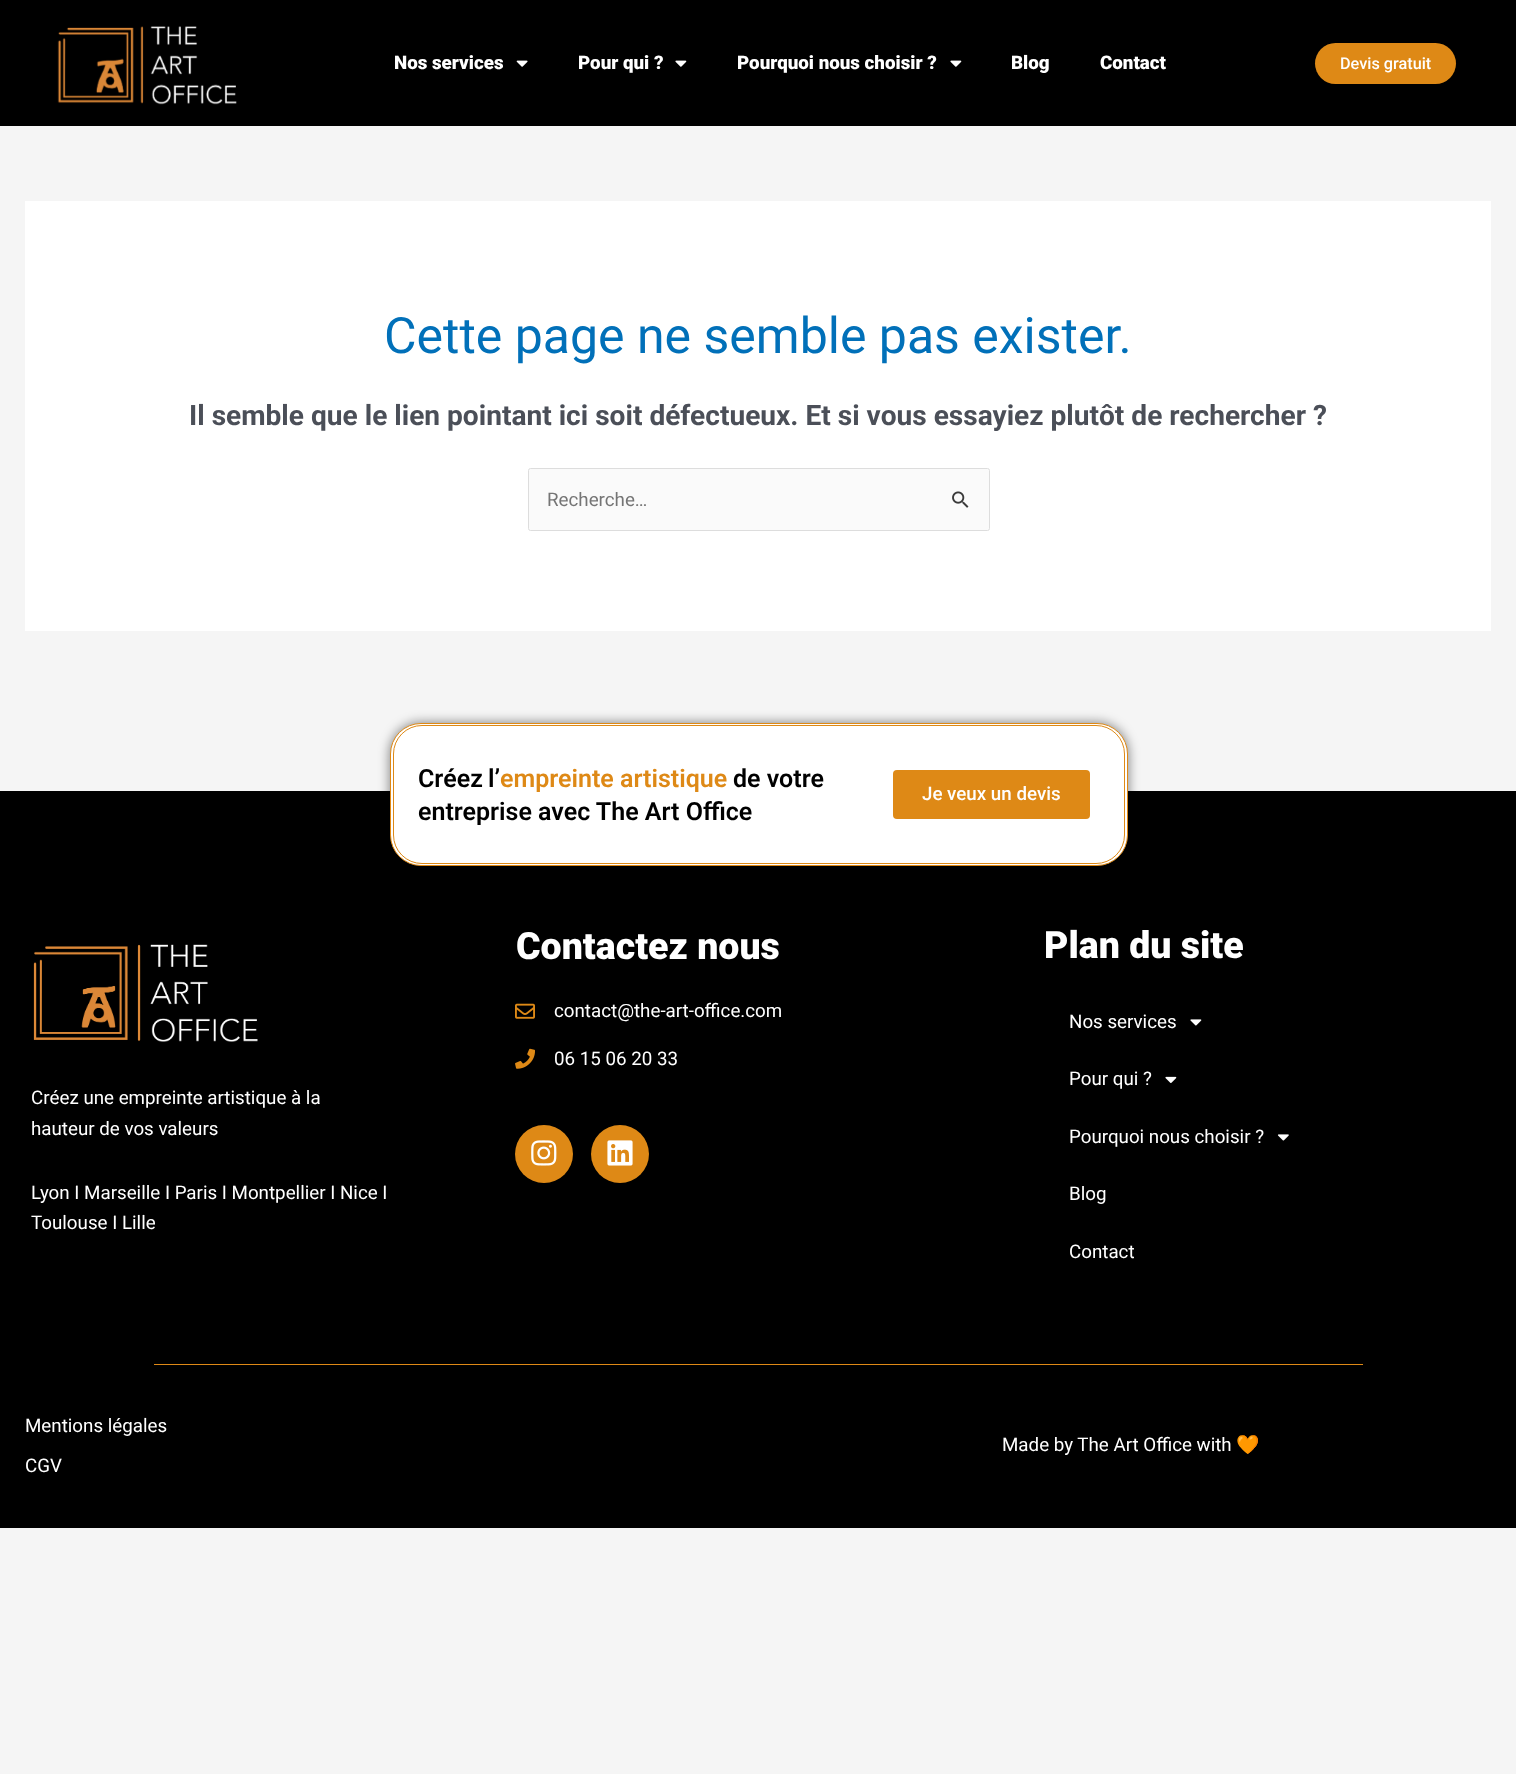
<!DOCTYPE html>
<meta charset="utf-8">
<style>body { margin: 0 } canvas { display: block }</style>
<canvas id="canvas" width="1516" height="1774"></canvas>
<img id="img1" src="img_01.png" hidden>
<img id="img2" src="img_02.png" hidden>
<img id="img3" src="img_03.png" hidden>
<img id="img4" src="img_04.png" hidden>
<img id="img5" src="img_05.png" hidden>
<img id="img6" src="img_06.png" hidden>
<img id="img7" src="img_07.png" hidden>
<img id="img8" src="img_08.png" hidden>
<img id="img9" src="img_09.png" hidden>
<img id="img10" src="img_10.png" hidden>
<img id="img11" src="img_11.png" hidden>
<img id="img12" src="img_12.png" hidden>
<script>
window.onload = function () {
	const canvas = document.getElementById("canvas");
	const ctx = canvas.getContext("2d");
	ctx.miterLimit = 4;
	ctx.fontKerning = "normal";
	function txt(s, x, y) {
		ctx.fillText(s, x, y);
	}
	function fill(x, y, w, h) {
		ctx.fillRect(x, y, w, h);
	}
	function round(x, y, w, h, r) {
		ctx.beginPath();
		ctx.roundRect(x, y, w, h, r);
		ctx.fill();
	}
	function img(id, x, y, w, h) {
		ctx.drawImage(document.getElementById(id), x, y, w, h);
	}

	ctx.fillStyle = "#F5F5F5";
	fill(0, 0, 1516, 1774);
	ctx.fillStyle = "#000000";
	fill(0, 0, 1516, 126);
	img("img1", 57, 26, 180, 79);
	img("img2", 516, 60, 12, 7);
	img("img3", 675, 60, 12, 7);
	img("img3", 950, 60, 12, 7);
	ctx.fillStyle = "#DE8916";
	round(1315, 43, 141, 41, 20.5);
	ctx.fillStyle = "#FFFFFF";
	fill(25, 201, 1466, 430);
	ctx.fillStyle = "#FAFAFA";
	ctx.beginPath();
	ctx.roundRect(528.5, 468.5, 461, 62, 2);
	ctx.fill();
	ctx.strokeStyle = "#DDDDDD";
	ctx.stroke();
	img("img4", 952, 491, 17, 17);
	ctx.fillStyle = "#000000";
	fill(0, 791, 1516, 737);
	ctx.fillStyle = "rgba(0, 0, 0, 0.5)";
	ctx.filter = "blur(6px)";
	ctx.beginPath();
	ctx.roundRect(390, 723, 738, 143, 31);
	ctx.fill();
	ctx.filter = "none";
	ctx.fillStyle = "#FFFFFF";
	ctx.beginPath();
	ctx.roundRect(390.5, 723.5, 737, 142, 30.5);
	ctx.fill();
	ctx.strokeStyle = "#DE8916";
	ctx.stroke();
	ctx.beginPath();
	ctx.roundRect(393.5, 725.5, 731, 138, 28.5);
	ctx.stroke();
	ctx.fillStyle = "#DE8916";
	round(893, 770, 197, 49, 4);
	img("img5", 515, 1003, 20, 16);
	img("img6", 515, 1048, 20, 21);
	ctx.beginPath();
	ctx.arc(544, 1154, 29, 0, Math.PI * 2);
	ctx.fill();
	img("img7", 531, 1140, 26, 26);
	ctx.beginPath();
	ctx.arc(620, 1154, 29, 0, Math.PI * 2);
	ctx.fill();
	img("img8", 607, 1140, 26, 26);
	img("img9", 1190, 1019, 12, 7);
	img("img10", 1165, 1076, 12, 7);
	img("img11", 1277, 1134, 12, 7);
	img("img12", 33, 944, 225, 98);
	fill(154, 1364, 1209, 1);
	ctx.font = "900 18.75px Roboto";
	ctx.fillStyle = "#FFFFFF";
	txt("Nos services", 394, 69);
	txt("Pour qui ?", 578, 69);
	txt("Pourquoi nous choisir ?", 737, 69);
	txt("Blog", 1011, 69);
	txt("Contact", 1100, 69);
	ctx.font = "500 16.25px Roboto";
	txt("Devis gratuit", 1340, 69);
	ctx.font = "50px Roboto";
	ctx.fillStyle = "#0170B9";
	txt("Cette page ne semble pas exister.", 384, 353);
	ctx.font = "bold 28.1px Roboto";
	ctx.fillStyle = "#4B4F58";
	txt("Il semble que le lien pointant ici soit défectueux. Et si vous essayiez plutôt de rechercher ?", 189, 425);
	ctx.font = "18.75px Roboto";
	ctx.fillStyle = "#757575";
	txt("Recherche…", 547, 506);
	ctx.wordSpacing = "-1px";
	ctx.font = "600 25px Roboto";
	ctx.fillStyle = "#000000";
	txt("Créez l’", 418, 787);
	ctx.wordSpacing = "0px";
	ctx.fillStyle = "#DE8916";
	txt("empreinte artistique", 500, 787);
	ctx.fillStyle = "#000000";
	txt("de votre", 733, 787);
	txt("entreprise avec The Art Office", 418, 820);
	ctx.font = "500 18.75px Roboto";
	ctx.fillStyle = "#FFFFFF";
	txt("Je veux un devis", 922, 800);
	ctx.font = "900 37.5px Roboto";
	txt("Contactez nous", 516, 959);
	ctx.font = "18.75px Roboto";
	txt("contact@the-art-office.com", 554, 1017);
	txt("06 15 06 20 33", 554, 1065);
	ctx.font = "900 37.5px Roboto";
	txt("Plan du site", 1044, 958);
	ctx.font = "18.75px Roboto";
	txt("Nos services", 1069, 1028);
	txt("Pour qui ?", 1069, 1085);
	txt("Pourquoi nous choisir ?", 1069, 1143);
	txt("Blog", 1069, 1200);
	txt("Contact", 1069, 1258);
	txt("Créez une empreinte artistique à la", 31, 1104);
	txt("hauteur de vos valeurs", 31, 1135);
	txt("Lyon Ι Marseille Ι Paris Ι Montpellier Ι Nice Ι", 31, 1199);
	txt("Toulouse Ι Lille", 31, 1229);
	txt("Mentions légales", 25, 1432);
	txt("CGV", 25, 1472);
	txt("Made by The Art Office with", 1002, 1451);
	ctx.font = "18.75px Noto Color Emoji";
	txt("🧡", 1236, 1451);
};
</script>
